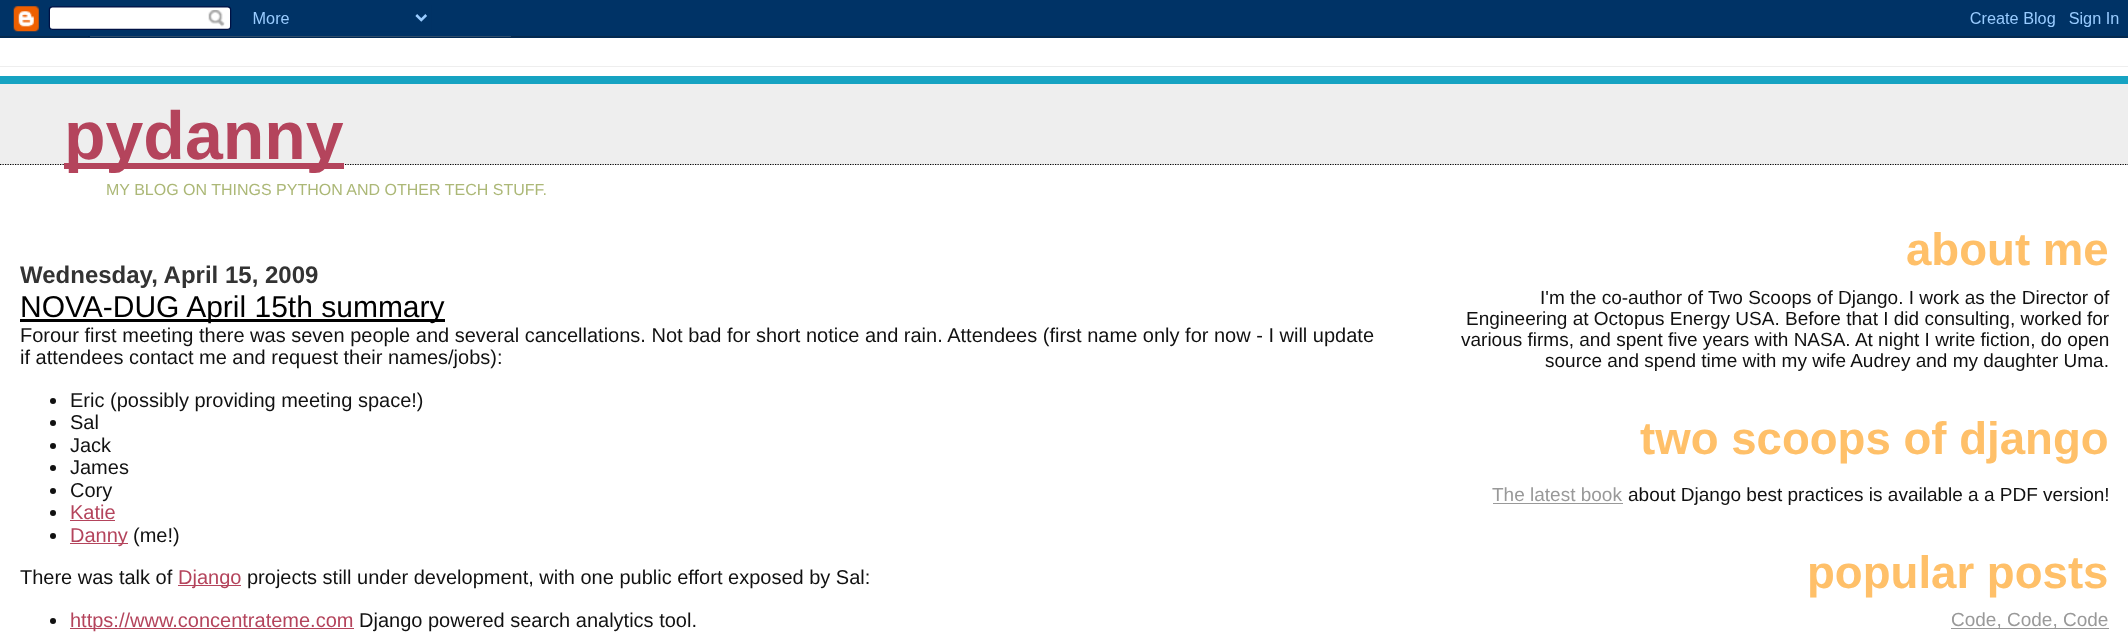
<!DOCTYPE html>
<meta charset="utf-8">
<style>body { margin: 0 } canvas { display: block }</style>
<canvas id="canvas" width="2128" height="638"></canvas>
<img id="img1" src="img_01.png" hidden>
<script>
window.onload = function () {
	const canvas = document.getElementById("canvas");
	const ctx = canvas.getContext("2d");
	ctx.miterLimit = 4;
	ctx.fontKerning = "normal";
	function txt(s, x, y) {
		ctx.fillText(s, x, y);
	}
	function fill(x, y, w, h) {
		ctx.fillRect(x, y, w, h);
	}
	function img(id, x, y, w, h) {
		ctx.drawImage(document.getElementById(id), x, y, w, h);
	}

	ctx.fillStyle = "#FFFFFF";
	fill(0, 0, 2128, 638);
	img("img1", 0, 0, 2128, 38);
	ctx.fillStyle = "#EEEEEE";
	fill(0, 66, 2128, 1);
	fill(0, 84, 2128, 81);
	ctx.fillStyle = "#16A3C2";
	fill(0, 76, 2128, 8);
	ctx.beginPath();
	ctx.moveTo(0, 164.5);
	ctx.lineTo(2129, 164.5);
	ctx.strokeStyle = "#000000";
	ctx.lineWidth = 1.2;
	ctx.setLineDash([1.25, 1.25]);
	ctx.stroke();
	ctx.fillStyle = "#B4445C";
	fill(64, 163, 280, 6);
	ctx.fillStyle = "#000000";
	fill(20, 319, 425, 3);
	ctx.fillStyle = "#111111";
	ctx.beginPath();
	ctx.arc(53, 401, 3, 0, Math.PI * 2);
	ctx.fill();
	ctx.beginPath();
	ctx.arc(53, 423, 3, 0, Math.PI * 2);
	ctx.fill();
	ctx.beginPath();
	ctx.arc(53, 446, 3, 0, Math.PI * 2);
	ctx.fill();
	ctx.beginPath();
	ctx.arc(53, 468, 3, 0, Math.PI * 2);
	ctx.fill();
	ctx.beginPath();
	ctx.arc(53, 491, 3, 0, Math.PI * 2);
	ctx.fill();
	ctx.beginPath();
	ctx.arc(53, 513, 3, 0, Math.PI * 2);
	ctx.fill();
	ctx.fillStyle = "#B4445C";
	fill(70, 520, 45, 1);
	ctx.fillStyle = "#111111";
	ctx.beginPath();
	ctx.arc(53, 536, 3, 0, Math.PI * 2);
	ctx.fill();
	ctx.fillStyle = "#B4445C";
	fill(70, 543, 58, 1);
	fill(178, 585, 63, 1);
	ctx.fillStyle = "#111111";
	ctx.beginPath();
	ctx.arc(53, 621, 3, 0, Math.PI * 2);
	ctx.fill();
	ctx.fillStyle = "#B4445C";
	fill(70, 628, 284, 1);
	ctx.fillStyle = "#999999";
	fill(1493, 503, 130, 1);
	fill(1951, 628, 158, 1);
	ctx.font = "bold 68px Liberation Sans";
	ctx.fillStyle = "#B4445C";
	txt("pydanny", 64, 159);
	ctx.font = "16px Liberation Sans";
	ctx.fillStyle = "#ACB877";
	txt("MY BLOG ON THINGS PYTHON AND OTHER TECH STUFF.", 106, 195);
	ctx.font = "bold 24px Liberation Sans";
	ctx.fillStyle = "#333333";
	txt("Wednesday, April 15, 2009", 20, 283);
	ctx.font = "30px Liberation Sans";
	ctx.fillStyle = "#000000";
	txt("NOVA-DUG April 15th summary", 20, 317);
	ctx.font = "20px Liberation Sans";
	ctx.fillStyle = "#111111";
	txt("Forour first meeting there was seven people and several cancellations. Not bad for short notice and rain. Attendees (first name only for now - I will update", 20, 342);
	txt("if attendees contact me and request their names/jobs):", 20, 364);
	txt("Eric (possibly providing meeting space!)", 70, 407);
	txt("Sal", 70, 429);
	txt("Jack", 70, 452);
	txt("James", 70, 474);
	txt("Cory", 70, 497);
	ctx.fillStyle = "#B4445C";
	txt("Katie", 70, 519);
	txt("Danny", 70, 542);
	ctx.fillStyle = "#111111";
	txt("(me!)", 133, 542);
	txt("There was talk of", 20, 584);
	ctx.fillStyle = "#B4445C";
	txt("Django", 178, 584);
	ctx.fillStyle = "#111111";
	txt("projects still under development, with one public effort exposed by Sal:", 247, 584);
	ctx.fillStyle = "#B4445C";
	txt("https://www.concentrateme.com", 70, 627);
	ctx.fillStyle = "#111111";
	txt("Django powered search analytics tool.", 359, 627);
	ctx.font = "bold 45.6px Liberation Sans";
	ctx.fillStyle = "#FFC069";
	txt("about me", 1906, 265);
	ctx.font = "19px Liberation Sans";
	ctx.fillStyle = "#111111";
	txt("I'm the co-author of Two Scoops of Django. I work as the Director of", 1540, 304);
	txt("Engineering at Octopus Energy USA. Before that I did consulting, worked for", 1466, 325);
	txt("various firms, and spent five years with NASA. At night I write fiction, do open", 1461, 346);
	txt("source and spend time with my wife Audrey and my daughter Uma.", 1545, 367);
	ctx.font = "bold 45.6px Liberation Sans";
	ctx.fillStyle = "#FFC069";
	txt("two scoops of django", 1640, 454);
	ctx.font = "19px Liberation Sans";
	ctx.fillStyle = "#999999";
	txt("The latest book", 1492, 501);
	ctx.fillStyle = "#111111";
	txt("about Django best practices is available a a PDF version!", 1628, 501);
	ctx.font = "bold 45.6px Liberation Sans";
	ctx.fillStyle = "#FFC069";
	txt("popular posts", 1807, 588);
	ctx.font = "19px Liberation Sans";
	ctx.fillStyle = "#999999";
	txt("Code, Code, Code", 1951, 626);
};
</script>
